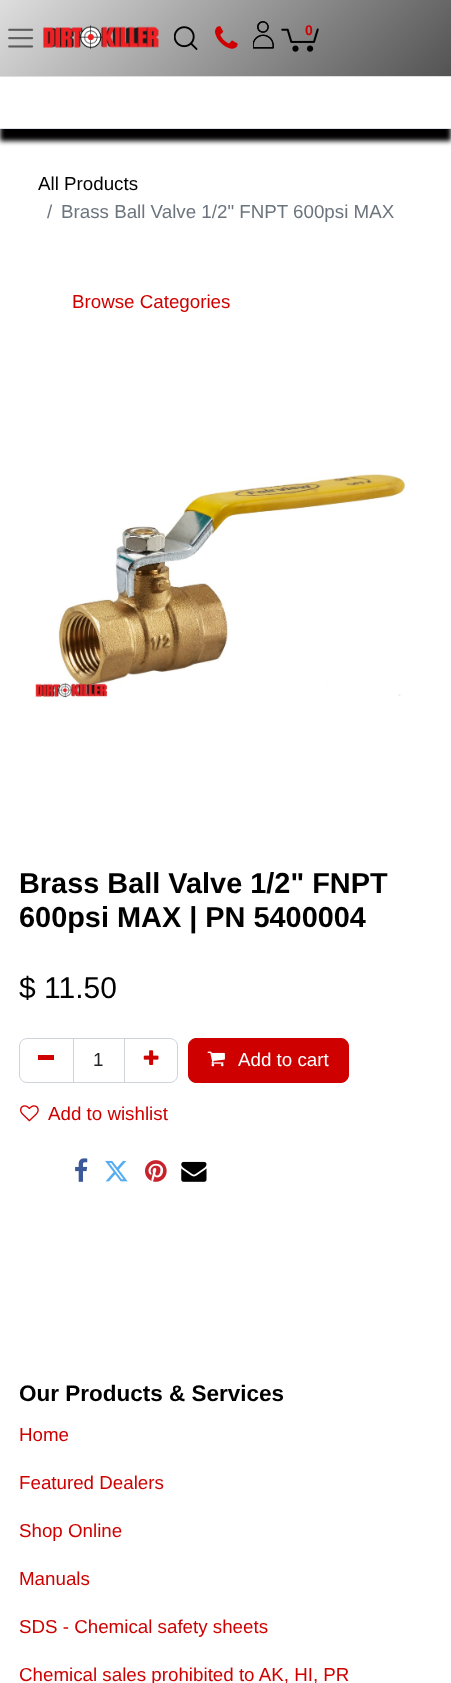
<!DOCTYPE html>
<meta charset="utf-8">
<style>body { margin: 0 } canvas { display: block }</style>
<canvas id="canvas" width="451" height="1683"></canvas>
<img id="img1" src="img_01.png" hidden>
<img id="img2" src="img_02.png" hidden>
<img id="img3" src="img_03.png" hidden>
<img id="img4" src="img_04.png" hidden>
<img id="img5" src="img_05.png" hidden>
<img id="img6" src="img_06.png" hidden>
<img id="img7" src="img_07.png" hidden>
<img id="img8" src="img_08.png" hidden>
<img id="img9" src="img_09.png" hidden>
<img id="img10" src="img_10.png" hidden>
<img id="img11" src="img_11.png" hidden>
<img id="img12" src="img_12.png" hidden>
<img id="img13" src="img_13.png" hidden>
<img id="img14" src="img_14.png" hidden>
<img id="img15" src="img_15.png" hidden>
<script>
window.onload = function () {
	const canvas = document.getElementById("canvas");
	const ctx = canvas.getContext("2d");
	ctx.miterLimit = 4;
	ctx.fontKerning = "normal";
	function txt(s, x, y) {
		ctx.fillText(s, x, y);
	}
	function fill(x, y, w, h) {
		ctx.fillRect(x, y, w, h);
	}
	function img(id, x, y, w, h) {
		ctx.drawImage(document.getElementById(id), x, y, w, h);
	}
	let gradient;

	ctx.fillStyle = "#FFFFFF";
	fill(0, 0, 451, 1683);
	ctx.fillStyle = "#000000";
	ctx.filter = "blur(2.5px)";
	ctx.beginPath();
	ctx.rect(0, 13, 451, 128);
	ctx.fill();
	ctx.filter = "none";
	gradient = ctx.createLinearGradient(81, -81, 371, 209);
	gradient.addColorStop(0, "#DEDEDE");
	gradient.addColorStop(1, "#454545");
	ctx.fillStyle = gradient;
	fill(0, 0, 451, 76);
	img("img1", 8, 28, 26, 20);
	img("img2", 43, 25, 116, 25);
	img("img3", 174, 26, 24, 24);
	img("img4", 215, 26, 23, 23);
	img("img5", 253, 21, 21, 28);
	img("img6", 253, 21, 21, 28);
	img("img7", 281, 28, 38, 24);
	ctx.fillStyle = "#FFFFFF";
	fill(0, 77, 451, 51);
	ctx.fillStyle = "#DEDEDF";
	fill(0, 76, 451, 1);
	ctx.fillStyle = "#DEE2E6";
	fill(0, 128, 451, 1);
	img("img8", 35, 474, 371, 224);
	ctx.strokeStyle = "#CED4DA";
	ctx.strokeRect(73.5, 1038.5, 51, 44);
	ctx.beginPath();
	ctx.roundRect(19.5, 1038.5, 54, 44, [7.5, 0, 0, 7.5]);
	ctx.stroke();
	ctx.fillStyle = "#CE0000";
	fill(38, 1055, 16, 5);
	ctx.beginPath();
	ctx.roundRect(124.5, 1038.5, 53, 44, [0, 7.5, 7.5, 0]);
	ctx.stroke();
	img("img9", 143, 1050, 16, 15);
	ctx.beginPath();
	ctx.roundRect(188.5, 1038.5, 160, 44, 7.5);
	ctx.fill();
	ctx.strokeStyle = "#CE0000";
	ctx.stroke();
	img("img10", 207, 1051, 18, 16);
	img("img11", 20, 1105, 19, 17);
	img("img12", 75, 1158, 13, 24);
	img("img13", 105, 1160, 23, 22);
	img("img14", 145, 1160, 22, 22);
	img("img15", 181, 1161, 26, 21);
	ctx.font = "bold 14px Liberation Sans";
	txt("0", 305, 35);
	ctx.font = "18.75px Liberation Sans";
	ctx.fillStyle = "#000000";
	txt("All Products", 38, 190);
	ctx.fillStyle = "#6C757D";
	txt("/", 47, 218);
	txt("Brass Ball Valve 1/2\" FNPT 600psi MAX", 61, 218);
	ctx.fillStyle = "#CE0000";
	txt("Browse Categories", 72, 308);
	ctx.font = "bold 28.9px Liberation Sans";
	ctx.fillStyle = "#000000";
	txt("Brass Ball Valve 1/2\" FNPT", 19, 893);
	txt("600psi MAX | PN 5400004", 19, 927);
	ctx.font = "30px Liberation Sans";
	txt("$ 11.50", 19, 998);
	ctx.font = "18.75px Liberation Sans";
	ctx.fillStyle = "#212529";
	txt("1", 93, 1066);
	ctx.fillStyle = "#FFFFFF";
	txt("Add to cart", 238, 1066);
	ctx.fillStyle = "#CE0000";
	txt("Add to wishlist", 48, 1120);
	ctx.font = "bold 22.5px Liberation Sans";
	ctx.fillStyle = "#000000";
	txt("Our Products & Services", 19, 1401);
	ctx.font = "18.75px Liberation Sans";
	ctx.fillStyle = "#CE0000";
	txt("Home", 19, 1441);
	txt("Featured Dealers", 19, 1489);
	txt("Shop Online", 19, 1537);
	txt("Manuals", 19, 1585);
	txt("SDS - Chemical safety sheets", 19, 1633);
	txt("Chemical sales prohibited to AK, HI, PR", 19, 1681);
};
</script>
